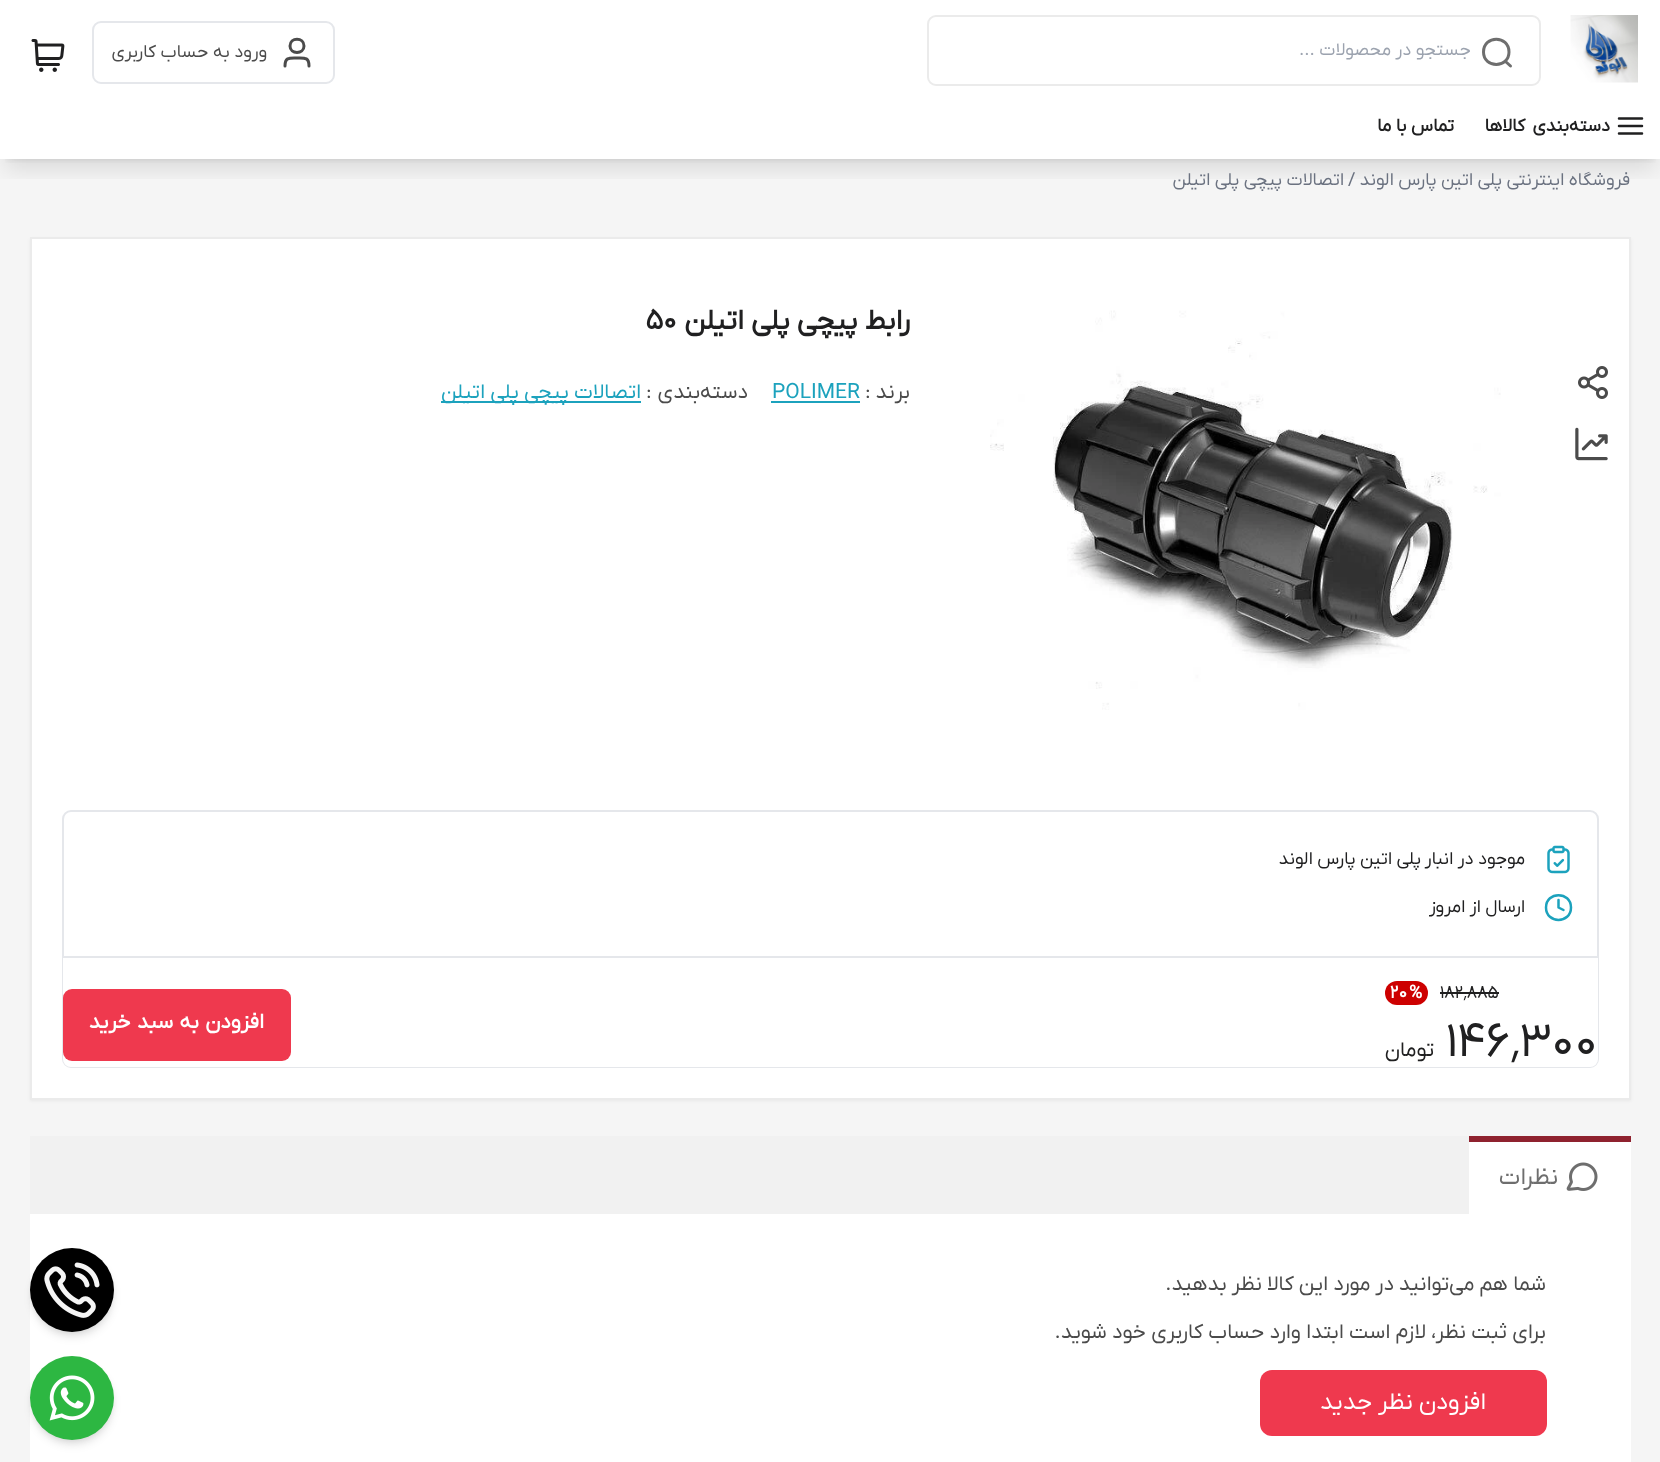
<!DOCTYPE html>
<meta charset="utf-8">
<style>body { margin: 0 } canvas { display: block }</style>
<canvas id="canvas" width="1660" height="1462"></canvas>
<img id="img1" src="img_01.png" hidden>
<img id="img2" src="img_02.png" hidden>
<img id="img3" src="img_03.png" hidden>
<img id="img4" src="img_04.png" hidden>
<img id="img5" src="img_05.png" hidden>
<img id="img6" src="img_06.png" hidden>
<img id="img7" src="img_07.png" hidden>
<img id="img8" src="img_08.png" hidden>
<img id="img9" src="img_09.png" hidden>
<script>
window.onload = function () {
	const canvas = document.getElementById("canvas");
	const ctx = canvas.getContext("2d");
	ctx.miterLimit = 4;
	ctx.fontKerning = "normal";
	function txt(s, x, y) {
		ctx.fillText(s, x, y);
	}
	function fill(x, y, w, h) {
		ctx.fillRect(x, y, w, h);
	}
	function round(x, y, w, h, r) {
		ctx.beginPath();
		ctx.roundRect(x, y, w, h, r);
		ctx.fill();
	}
	function img(id, x, y, w, h) {
		ctx.drawImage(document.getElementById(id), x, y, w, h);
	}

	ctx.fillStyle = "#F5F5F5";
	fill(0, 0, 1660, 1462);
	ctx.fillStyle = "#FFFFFF";
	fill(0, 0, 1660, 159);
	img("img1", 1570, 15, 68, 68);
	ctx.beginPath();
	ctx.roundRect(928, 16, 612, 69, 8);
	ctx.strokeStyle = "#EBEBEB";
	ctx.lineWidth = 2;
	ctx.stroke();
	ctx.beginPath();
	ctx.moveTo(1510.5, 66);
	ctx.lineTo(1505, 61);
	ctx.moveTo(1509, 52);
	ctx.bezierCurveTo(1509, 68.5, 1483.5, 68.5, 1483.5, 52);
	ctx.bezierCurveTo(1483.5, 35, 1509, 35, 1509, 52);
	ctx.strokeStyle = "#6E6E6E";
	ctx.lineWidth = 3;
	ctx.lineCap = "round";
	ctx.lineJoin = "round";
	ctx.stroke();
	ctx.beginPath();
	ctx.roundRect(93, 22, 241, 61, 8);
	ctx.strokeStyle = "#E5E7EB";
	ctx.lineWidth = 2;
	ctx.lineJoin = "miter";
	ctx.stroke();
	ctx.beginPath();
	ctx.moveTo(309, 66);
	ctx.bezierCurveTo(309, 57, 304.5, 58, 297, 58);
	ctx.bezierCurveTo(289.5, 58, 285, 57, 285, 66);
	ctx.moveTo(304, 46);
	ctx.bezierCurveTo(304, 54.5, 290, 54.5, 290, 46);
	ctx.bezierCurveTo(290, 37, 304, 37, 304, 46);
	ctx.strokeStyle = "#4B4B4B";
	ctx.lineWidth = 3;
	ctx.lineJoin = "round";
	ctx.stroke();
	img("img2", 31, 39, 34, 33);
	ctx.save();
	ctx.beginPath();
	ctx.rect(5, 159, 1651, 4);
	ctx.clip();
	ctx.fillStyle = "rgba(0, 0, 0, 0.1)";
	ctx.filter = "blur(4.5px)";
	ctx.beginPath();
	ctx.rect(6, 114, 1649, 45);
	ctx.fill();
	ctx.filter = "none";
	ctx.restore();
	ctx.save();
	ctx.beginPath();
	ctx.rect(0, 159, 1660, 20);
	ctx.clip();
	ctx.fillStyle = "rgba(0, 0, 0, 0.1)";
	ctx.filter = "blur(11px)";
	ctx.beginPath();
	ctx.rect(5, 122, 1651, 48);
	ctx.fill();
	ctx.filter = "none";
	ctx.restore();
	ctx.beginPath();
	ctx.moveTo(1619, 126);
	ctx.lineTo(1642, 126);
	ctx.moveTo(1619, 118.5);
	ctx.lineTo(1642, 118.5);
	ctx.moveTo(1619, 133.5);
	ctx.lineTo(1642, 133.5);
	ctx.strokeStyle = "#202021";
	ctx.lineWidth = 2.5;
	ctx.stroke();
	ctx.fillStyle = "rgba(0, 0, 0, 0.05)";
	ctx.filter = "blur(1.5px)";
	ctx.beginPath();
	ctx.rect(30, 239, 1601, 862);
	ctx.fill();
	ctx.filter = "none";
	ctx.fillStyle = "#FFFFFF";
	ctx.beginPath();
	ctx.rect(31, 238, 1599, 861);
	ctx.fill();
	ctx.strokeStyle = "#EBEBEB";
	ctx.lineWidth = 2;
	ctx.lineJoin = "miter";
	ctx.stroke();
	img("img3", 1578, 366, 30, 33);
	img("img4", 1575, 427, 33, 34);
	img("img5", 990, 310, 511, 400);
	ctx.fillStyle = "#1CA2BD";
	fill(771, 401, 89, 2);
	fill(441, 401, 200, 2);
	ctx.beginPath();
	ctx.roundRect(63, 811, 1535, 256, 8);
	ctx.strokeStyle = "#E5E7EB";
	ctx.stroke();
	img("img6", 1547, 845, 23, 29);
	ctx.beginPath();
	ctx.moveTo(1558.5, 900);
	ctx.lineTo(1558.5, 907.5);
	ctx.lineTo(1563.5, 910);
	ctx.moveTo(1571, 907.5);
	ctx.bezierCurveTo(1571, 924, 1546, 924, 1546, 907.5);
	ctx.bezierCurveTo(1546, 891, 1571, 891, 1571, 907.5);
	ctx.strokeStyle = "#1CA2BD";
	ctx.lineWidth = 2.5;
	ctx.lineJoin = "round";
	ctx.stroke();
	ctx.fillStyle = "#FFFFFF";
	ctx.beginPath();
	ctx.roundRect(63, 957, 1535, 110, [0, 0, 8, 8]);
	ctx.fill();
	ctx.fillStyle = "#E5E7EB";
	fill(63, 956, 1535, 2);
	ctx.fillStyle = "#202021";
	fill(1440, 992, 59, 2);
	ctx.fillStyle = "#CD0000";
	round(1385, 981, 43, 24, 12);
	ctx.fillStyle = "#EF394E";
	round(63, 989, 228, 72, 9);
	ctx.fillStyle = "#FFFFFF";
	fill(30, 1214, 1601, 248);
	ctx.fillStyle = "#F1F1F1";
	fill(30, 1136, 1439, 78);
	ctx.fillStyle = "#FFFFFF";
	fill(1469, 1142, 162, 72);
	ctx.fillStyle = "#8F222F";
	fill(1469, 1136, 162, 6);
	img("img7", 1566, 1162, 32, 29);
	ctx.fillStyle = "#EF394E";
	round(1260, 1370, 287, 66, 12);
	ctx.fillStyle = "rgba(0, 0, 0, 0.1)";
	ctx.filter = "blur(3px)";
	ctx.beginPath();
	ctx.roundRect(33, 1254, 78, 78, 39);
	ctx.fill();
	ctx.filter = "none";
	ctx.filter = "blur(4.5px)";
	ctx.beginPath();
	ctx.roundRect(32, 1256, 81, 81, 40.5);
	ctx.fill();
	ctx.filter = "none";
	ctx.fillStyle = "#000000";
	ctx.beginPath();
	ctx.arc(72, 1290, 42, 0, Math.PI * 2);
	ctx.fill();
	img("img8", 44, 1262, 56, 56);
	ctx.fillStyle = "rgba(0, 0, 0, 0.1)";
	ctx.filter = "blur(3px)";
	ctx.beginPath();
	ctx.roundRect(33, 1362, 78, 78, 39);
	ctx.fill();
	ctx.filter = "none";
	ctx.filter = "blur(4.5px)";
	ctx.beginPath();
	ctx.roundRect(32, 1364, 81, 81, 40.5);
	ctx.fill();
	ctx.filter = "none";
	ctx.fillStyle = "#2DB742";
	ctx.beginPath();
	ctx.arc(72, 1398, 42, 0, Math.PI * 2);
	ctx.fill();
	img("img9", 49, 1375, 46, 46);
	ctx.direction = "rtl";
	ctx.font = "18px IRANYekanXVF";
	ctx.fillStyle = "#9CA3AF";
	txt("جستجو در محصولات ...", 1471, 55);
	ctx.fillStyle = "#4B4B4B";
	txt("ورود به حساب کاربری", 267, 57);
	ctx.wordSpacing = "3px";
	ctx.font = "bold 18px IRANYekanXVF";
	ctx.fillStyle = "#202021";
	txt("دسته‌بندی کالاها", 1610, 131);
	ctx.wordSpacing = "0px";
	txt("تماس با ما", 1454, 131);
	ctx.font = "18px IRANYekanXVF";
	ctx.fillStyle = "#6B7280";
	txt("فروشگاه اینترنتی", 1630, 185);
	txt("پلی اتین پارس الوند", 1502, 185);
	ctx.direction = "ltr";
	txt("/", 1348, 185);
	ctx.direction = "rtl";
	txt("اتصالات پیچی پلی اتیلن", 1344, 185);
	ctx.font = "bold 28.5px IRANYekanXVF";
	ctx.fillStyle = "#202021";
	txt("رابط پیچی پلی اتیلن", 910, 329);
	ctx.direction = "ltr";
	ctx.font = "bold 28.5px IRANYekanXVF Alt";
	txt("50", 646, 329);
	ctx.direction = "rtl";
	ctx.font = "21px IRANYekanXVF";
	ctx.fillStyle = "#4B4B4B";
	txt("برند", 910, 398);
	ctx.direction = "ltr";
	txt(":", 865, 398);
	ctx.fillStyle = "#1CA2BD";
	txt("POLIMER", 772, 398);
	ctx.direction = "rtl";
	ctx.fillStyle = "#4B4B4B";
	txt("دسته‌بندی", 748, 398);
	ctx.direction = "ltr";
	txt(":", 646, 398);
	ctx.direction = "rtl";
	ctx.fillStyle = "#1CA2BD";
	txt("اتصالات پیچی پلی اتیلن", 641, 398);
	ctx.font = "18px IRANYekanXVF";
	ctx.fillStyle = "#202021";
	txt("موجود در انبار", 1525, 864);
	txt("پلی اتین پارس الوند", 1421, 864);
	txt("ارسال از امروز", 1525, 912);
	ctx.direction = "ltr";
	txt("۱۸۲٬۸۸۵", 1440, 998);
	ctx.font = "bold 18px IRANYekanXVF";
	ctx.fillStyle = "#FFFFFF";
	txt("%", 1409, 998);
	ctx.font = "bold 18px IRANYekanXVF Alt";
	txt("20", 1390, 998);
	ctx.font = "48px IRANYekanXVF";
	ctx.fillStyle = "#202021";
	txt("۱۴۶٬۳۰۰", 1446, 1056);
	ctx.direction = "rtl";
	ctx.font = "21px IRANYekanXVF";
	txt("تومان", 1434, 1056);
	ctx.wordSpacing = "1px";
	ctx.font = "bold 21px IRANYekanXVF";
	ctx.fillStyle = "#FFFFFF";
	txt("افزودن به سبد خرید", 264, 1028);
	ctx.wordSpacing = "0px";
	ctx.font = "24px IRANYekanXVF";
	ctx.fillStyle = "#6E6E6E";
	txt("نظرات", 1558, 1184);
	ctx.font = "21px IRANYekanXVF";
	ctx.fillStyle = "#4B4B4B";
	txt("شما هم می‌توانید", 1546, 1290);
	txt("در مورد این کالا", 1394, 1290);
	txt("نظر بدهید.", 1262, 1290);
	txt("برای ثبت نظر، لازم است ابتدا وارد حساب کاربری خود شوید.", 1546, 1338);
	ctx.font = "24px IRANYekanXVF";
	ctx.fillStyle = "#FFFFFF";
	txt("افزودن نظر جدید", 1486, 1409);
};
</script>
